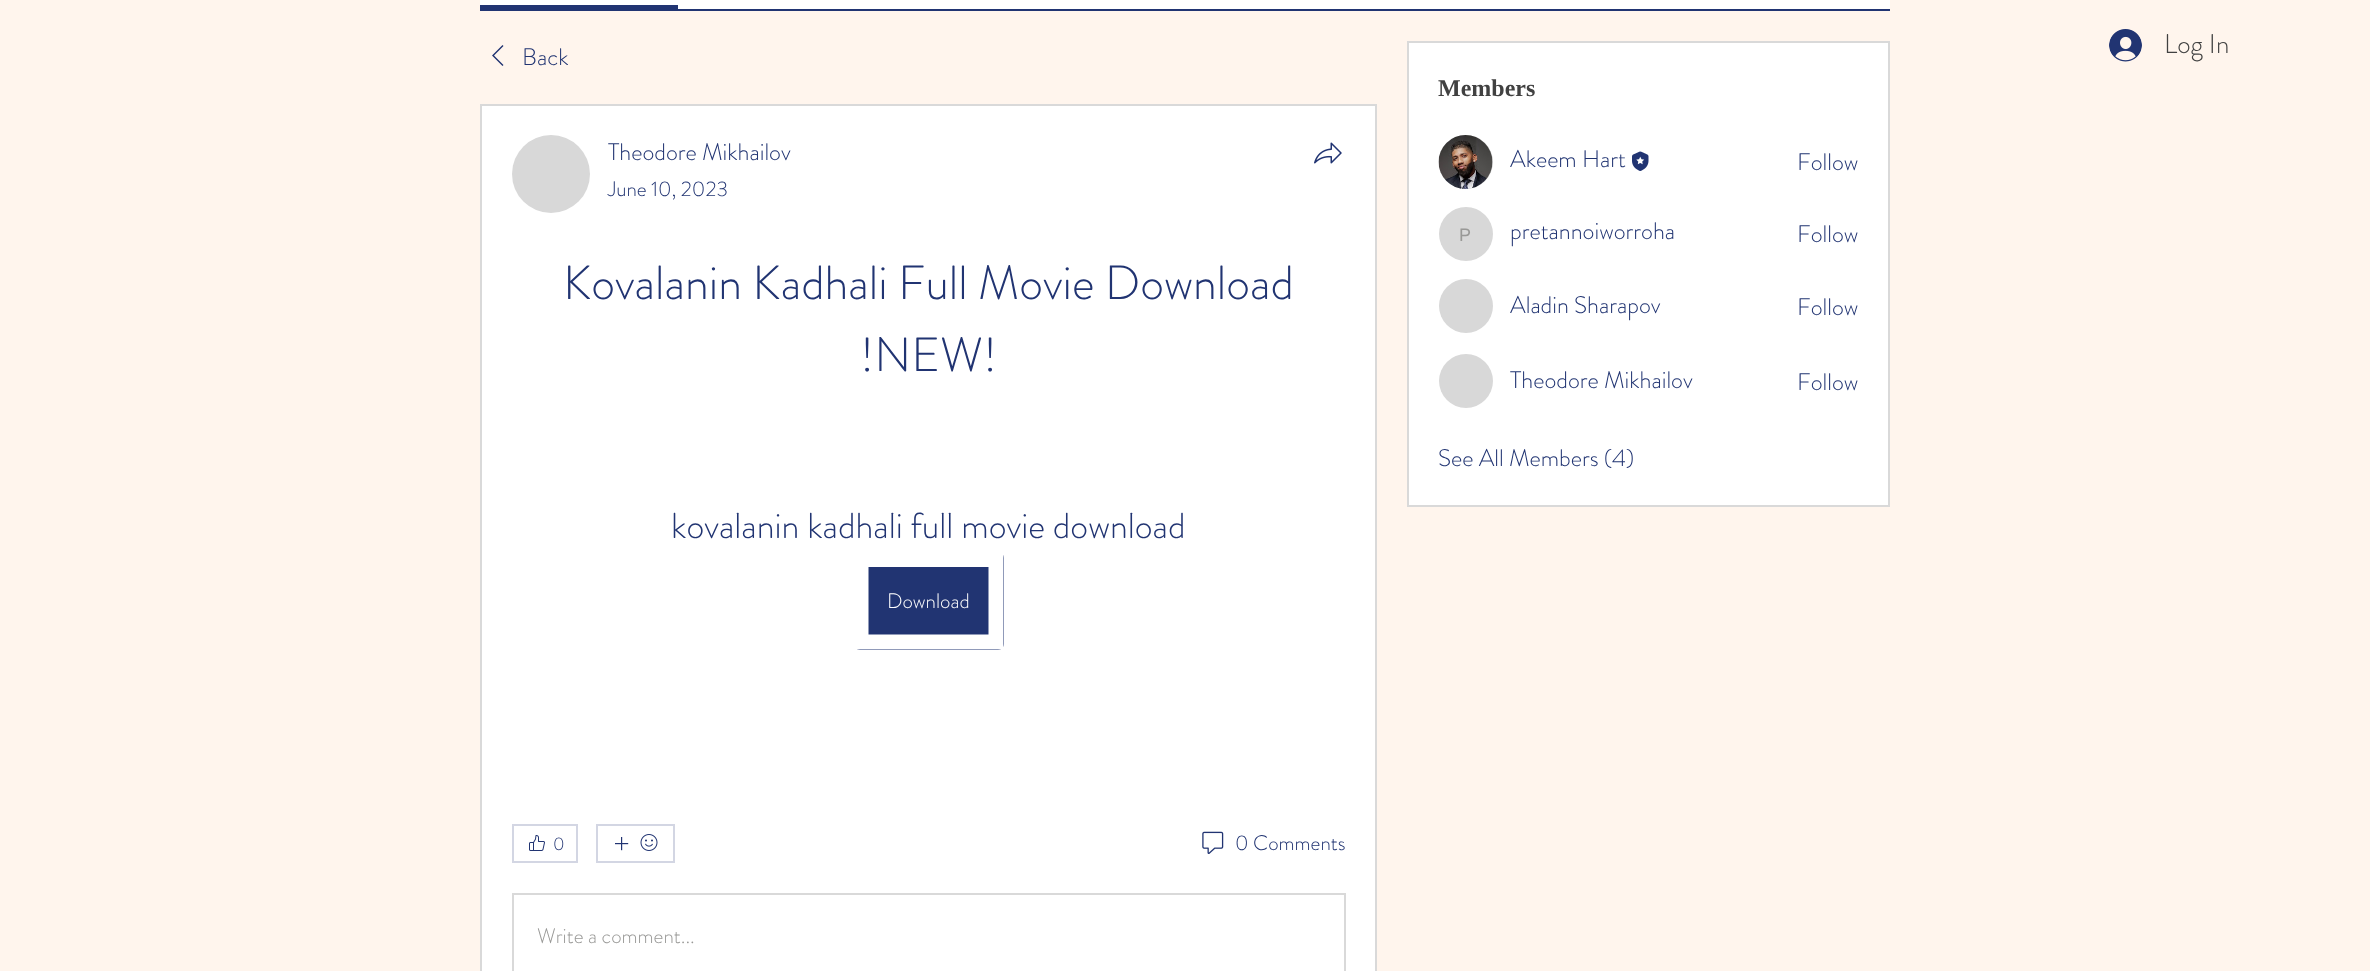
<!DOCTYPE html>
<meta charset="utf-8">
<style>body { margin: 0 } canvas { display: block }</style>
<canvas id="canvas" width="2370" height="971"></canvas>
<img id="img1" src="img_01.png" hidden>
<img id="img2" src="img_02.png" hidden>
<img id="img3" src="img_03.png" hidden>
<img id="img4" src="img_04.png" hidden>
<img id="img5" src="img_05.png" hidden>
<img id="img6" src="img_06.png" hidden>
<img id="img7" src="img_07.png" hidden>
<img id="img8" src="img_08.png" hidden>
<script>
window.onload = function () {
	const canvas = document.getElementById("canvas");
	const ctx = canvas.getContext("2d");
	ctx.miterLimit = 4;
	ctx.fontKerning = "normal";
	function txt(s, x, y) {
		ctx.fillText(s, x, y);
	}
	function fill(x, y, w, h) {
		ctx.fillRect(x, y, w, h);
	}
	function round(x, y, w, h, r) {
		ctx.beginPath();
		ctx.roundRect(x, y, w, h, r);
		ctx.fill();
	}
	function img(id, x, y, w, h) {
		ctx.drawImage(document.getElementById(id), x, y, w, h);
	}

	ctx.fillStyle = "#FFF5ED";
	fill(0, 0, 2370, 971);
	ctx.fillStyle = "#FFFFFF";
	fill(480, 0, 1410, 9);
	ctx.fillStyle = "#213472";
	fill(480, 9, 1410, 2);
	fill(480, 5, 198, 4);
	ctx.beginPath();
	ctx.moveTo(502.5, 45);
	ctx.lineTo(503.5, 46);
	ctx.lineTo(494, 55.5);
	ctx.lineTo(503.5, 65);
	ctx.lineTo(502.5, 66);
	ctx.lineTo(492, 55.5);
	ctx.closePath();
	ctx.fill("evenodd");
	ctx.fillStyle = "#FFFFFF";
	ctx.beginPath();
	ctx.rect(481, 105, 895, 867);
	ctx.fill();
	ctx.strokeStyle = "#D9D9D9";
	ctx.lineWidth = 2;
	ctx.stroke();
	ctx.fillStyle = "#D8D8D8";
	ctx.beginPath();
	ctx.arc(551, 174, 39, 0, Math.PI * 2);
	ctx.fill();
	img("img1", 1314, 142, 28, 22);
	ctx.fillStyle = "#213472";
	round(854, 552, 150, 98, 6);
	ctx.beginPath();
	ctx.moveTo(861, 559.5);
	ctx.lineTo(996, 559.5);
	ctx.lineTo(996, 642);
	ctx.lineTo(861, 642);
	ctx.closePath();
	ctx.strokeStyle = "#FFFFFF";
	ctx.lineWidth = 15;
	ctx.stroke();
	ctx.strokeStyle = "#D3D6E3";
	ctx.lineWidth = 2;
	ctx.strokeRect(513, 825, 64, 37);
	img("img2", 529, 835, 16, 16);
	ctx.strokeRect(597, 825, 77, 37);
	img("img3", 615, 837, 14, 14);
	img("img4", 640, 834, 18, 17);
	img("img5", 1202, 831, 22, 23);
	ctx.strokeStyle = "#D9D9D9";
	ctx.strokeRect(513, 894, 832, 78);
	ctx.fillStyle = "#FFFFFF";
	ctx.beginPath();
	ctx.rect(1408, 42, 481, 464);
	ctx.fill();
	ctx.stroke();
	ctx.fillStyle = "#D8D8D8";
	ctx.beginPath();
	ctx.arc(1466, 162, 27, 0, Math.PI * 2);
	ctx.fill();
	img("img6", 1438, 135, 55, 54);
	img("img7", 1632, 151, 17, 20);
	ctx.beginPath();
	ctx.arc(1466, 234, 27, 0, Math.PI * 2);
	ctx.fill();
	ctx.beginPath();
	ctx.arc(1466, 306, 27, 0, Math.PI * 2);
	ctx.fill();
	ctx.beginPath();
	ctx.arc(1466, 381, 27, 0, Math.PI * 2);
	ctx.fill();
	img("img8", 2109, 29, 33, 33);
	ctx.font = "300 24px 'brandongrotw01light'";
	ctx.fillStyle = "#213472";
	txt("Back", 522, 65);
	txt("Theodore Mikhailov", 608, 160);
	ctx.font = "300 21px 'brandongrotw01light'";
	txt("June 10, 2023", 608, 196);
	ctx.font = "300 48px 'brandongrotw01light'";
	txt("Kovalanin Kadhali Full Movie Download", 563, 299);
	txt("!NEW!", 860, 371);
	ctx.font = "300 36px 'brandongrotw01light'";
	txt("kovalanin kadhali full movie download", 671, 538);
	ctx.font = "300 21px 'brandongrotw01light'";
	ctx.fillStyle = "#FFFFFF";
	txt("Download", 887, 608);
	ctx.font = "300 18px 'brandongrotw01light'";
	ctx.fillStyle = "#213472";
	txt("0", 553, 850);
	ctx.font = "300 21px 'brandongrotw01light'";
	txt("0 Comments", 1235, 850);
	ctx.fillStyle = "#999997";
	txt("Write a comment...", 537, 943);
	ctx.font = "bold 24px Liberation Serif";
	ctx.fillStyle = "#414141";
	txt("Members", 1438, 96);
	ctx.font = "300 24px 'brandongrotw01light'";
	ctx.fillStyle = "#213472";
	txt("Akeem Hart", 1510, 167);
	txt("Follow", 1797, 170);
	ctx.font = "18px Liberation Sans";
	ctx.fillStyle = "#999997";
	txt("P", 1459, 241);
	ctx.font = "300 24px 'brandongrotw01light'";
	ctx.fillStyle = "#213472";
	txt("pretannoiworroha", 1510, 239);
	txt("Follow", 1797, 242);
	txt("Aladin Sharapov", 1510, 313);
	txt("Follow", 1797, 315);
	txt("Theodore Mikhailov", 1510, 388);
	txt("Follow", 1797, 390);
	txt("See All Members (4)", 1438, 466);
	ctx.font = "300 27px 'brandongrotw01light'";
	ctx.fillStyle = "#414141";
	txt("Log In", 2164, 53);
};
</script>
